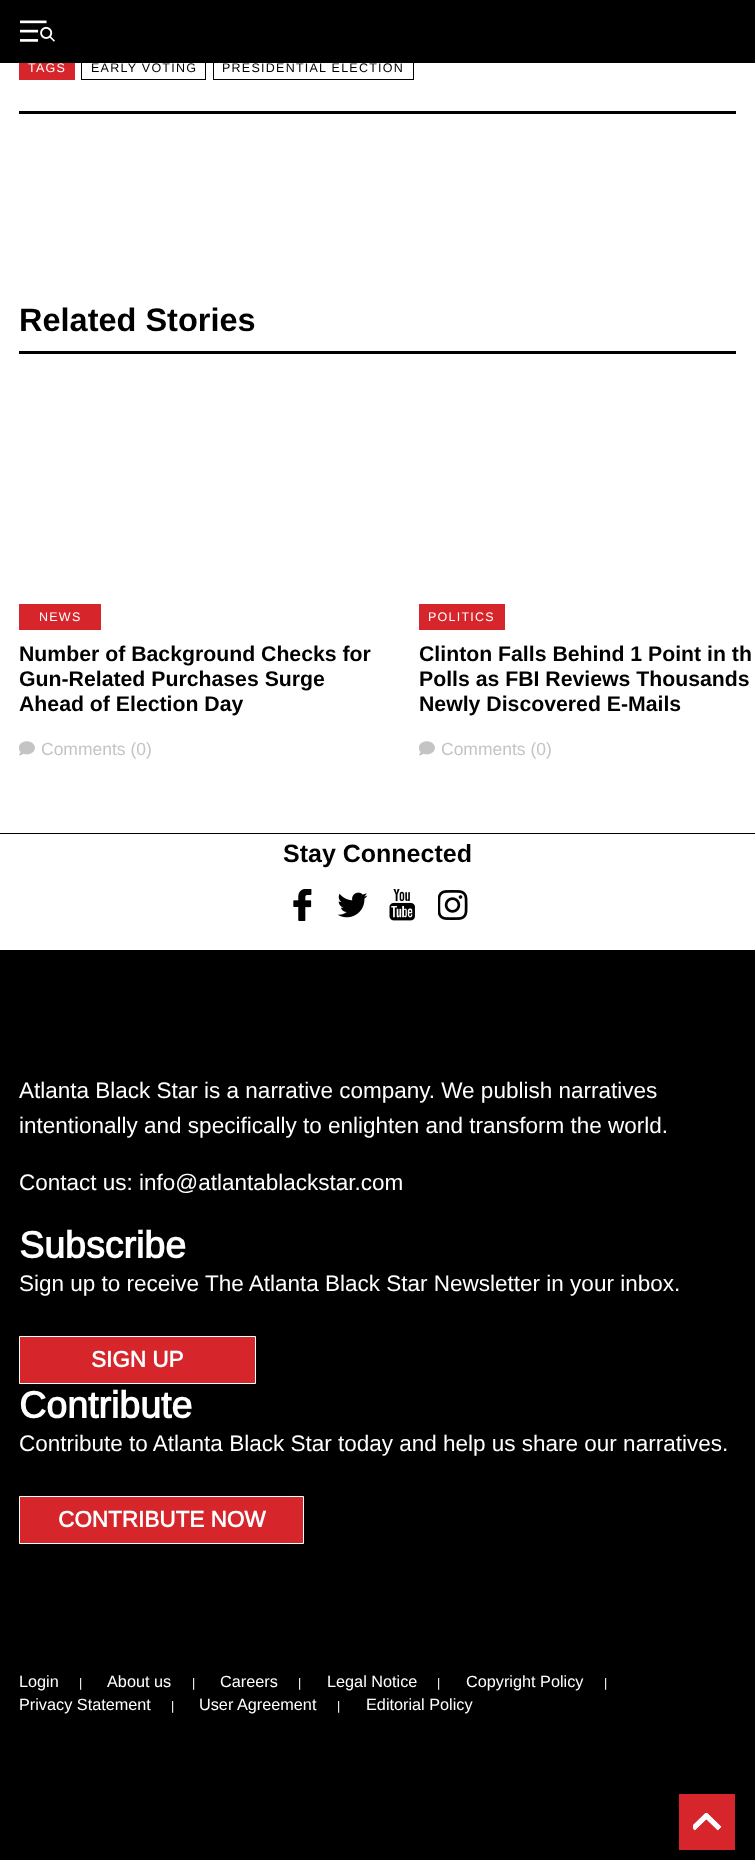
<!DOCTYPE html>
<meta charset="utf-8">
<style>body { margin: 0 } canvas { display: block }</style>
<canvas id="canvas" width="755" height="1860"></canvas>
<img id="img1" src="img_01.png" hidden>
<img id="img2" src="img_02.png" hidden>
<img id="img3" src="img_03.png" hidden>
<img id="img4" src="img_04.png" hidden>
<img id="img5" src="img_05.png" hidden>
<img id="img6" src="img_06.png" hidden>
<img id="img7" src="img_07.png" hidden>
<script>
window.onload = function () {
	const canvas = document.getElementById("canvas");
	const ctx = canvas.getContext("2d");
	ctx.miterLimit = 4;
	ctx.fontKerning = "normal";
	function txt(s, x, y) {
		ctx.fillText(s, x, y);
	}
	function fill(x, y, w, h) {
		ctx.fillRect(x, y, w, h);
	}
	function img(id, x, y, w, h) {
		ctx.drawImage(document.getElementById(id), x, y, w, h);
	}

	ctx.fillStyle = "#FFFFFF";
	fill(0, 0, 755, 1860);
	ctx.strokeStyle = "#000000";
	ctx.strokeRect(81.5, 54.5, 124, 25);
	ctx.strokeRect(213.5, 54.5, 200, 25);
	ctx.fillStyle = "#000000";
	fill(0, 0, 755, 63);
	img("img1", 20, 20, 35, 22);
	fill(19, 111, 717, 3);
	ctx.fillStyle = "#D6252B";
	fill(19, 63, 56, 17);
	ctx.fillStyle = "#000000";
	fill(19, 351, 717, 3);
	ctx.fillStyle = "#D6252B";
	fill(19, 604, 82, 26);
	img("img2", 19, 741, 16, 15);
	fill(419, 604, 86, 26);
	img("img2", 419, 741, 16, 15);
	ctx.fillStyle = "#000000";
	fill(0, 950, 755, 910);
	fill(0, 833, 755, 1);
	img("img3", 293, 889, 19, 32);
	img("img4", 338, 892, 30, 26);
	img("img5", 389, 889, 26, 32);
	img("img6", 438, 890, 30, 30);
	ctx.fillStyle = "#D6252B";
	ctx.beginPath();
	ctx.rect(19.5, 1336.5, 236, 47);
	ctx.fill();
	ctx.strokeStyle = "#FFFFFF";
	ctx.stroke();
	ctx.beginPath();
	ctx.rect(19.5, 1496.5, 284, 47);
	ctx.fill();
	ctx.stroke();
	fill(679, 1794, 56, 56);
	img("img7", 693, 1813, 29, 18);
	ctx.letterSpacing = "1.25px";
	ctx.font = "12.5px Arimo";
	ctx.fillStyle = "#FFFFFF";
	txt("TAGS", 28, 72);
	ctx.fillStyle = "#000000";
	txt("EARLY VOTING", 91, 72);
	txt("PRESIDENTIAL ELECTION", 222, 72);
	ctx.letterSpacing = "0px";
	ctx.font = "bold 32.5px Arimo";
	txt("Related Stories", 19, 331);
	ctx.letterSpacing = "1.25px";
	ctx.font = "12.5px Arimo";
	ctx.fillStyle = "#FFFFFF";
	txt("NEWS", 39, 621);
	ctx.letterSpacing = "0px";
	ctx.font = "bold 21.25px Arimo";
	ctx.fillStyle = "#000000";
	txt("Number of Background Checks for", 19, 661);
	txt("Gun-Related Purchases Surge", 19, 686);
	txt("Ahead of Election Day", 19, 711);
	ctx.font = "17.5px Arimo";
	ctx.fillStyle = "#C4C4C4";
	txt("Comments (0)", 41, 755);
	ctx.letterSpacing = "1.25px";
	ctx.font = "12.5px Arimo";
	ctx.fillStyle = "#FFFFFF";
	txt("POLITICS", 428, 621);
	ctx.letterSpacing = "0px";
	ctx.font = "bold 21.25px Arimo";
	ctx.fillStyle = "#000000";
	txt("Clinton Falls Behind 1 Point in th", 419, 661);
	txt("Polls as FBI Reviews Thousands", 419, 686);
	txt("Newly Discovered E-Mails", 419, 711);
	ctx.font = "17.5px Arimo";
	ctx.fillStyle = "#C4C4C4";
	txt("Comments (0)", 441, 755);
	ctx.font = "bold 25px Arimo";
	ctx.fillStyle = "#000000";
	txt("Stay Connected", 283, 862);
	ctx.font = "22.5px Arimo";
	ctx.fillStyle = "#FFFFFF";
	txt("Atlanta Black Star is a narrative company. We publish narratives", 19, 1098);
	txt("intentionally and specifically to enlighten and transform the world.", 19, 1133);
	txt("Contact us: info@atlantablackstar.com", 19, 1190);
	ctx.font = "bold 37.5px 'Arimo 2'";
	txt("Subscribe", 19, 1258);
	ctx.font = "22.5px Arimo";
	txt("Sign up to receive The Atlanta Black Star Newsletter in your inbox.", 19, 1291);
	ctx.font = "bold 22.5px 'Arimo 2'";
	txt("SIGN UP", 91, 1367);
	ctx.font = "bold 37.5px 'Arimo 2'";
	txt("Contribute", 19, 1418);
	ctx.font = "22.5px Arimo";
	txt("Contribute to Atlanta Black Star today and help us share our narratives.", 19, 1451);
	ctx.font = "bold 22.5px 'Arimo 2'";
	txt("CONTRIBUTE NOW", 58, 1527);
	ctx.font = "16.25px Arimo";
	txt("Login", 19, 1687);
	ctx.font = "12.5px Arimo";
	txt("|", 79, 1687);
	ctx.font = "16.25px Arimo";
	txt("About us", 107, 1687);
	ctx.font = "12.5px Arimo";
	txt("|", 192, 1687);
	ctx.font = "16.25px Arimo";
	txt("Careers", 220, 1687);
	ctx.font = "12.5px Arimo";
	txt("|", 298, 1687);
	ctx.font = "16.25px Arimo";
	txt("Legal Notice", 327, 1687);
	ctx.font = "12.5px Arimo";
	txt("|", 437, 1687);
	ctx.font = "16.25px Arimo";
	txt("Copyright Policy", 466, 1687);
	ctx.font = "12.5px Arimo";
	txt("|", 604, 1687);
	ctx.font = "16.25px Arimo";
	txt("Privacy Statement", 19, 1710);
	ctx.font = "12.5px Arimo";
	txt("|", 171, 1710);
	ctx.font = "16.25px Arimo";
	txt("User Agreement", 199, 1710);
	ctx.font = "12.5px Arimo";
	txt("|", 337, 1710);
	ctx.font = "16.25px Arimo";
	txt("Editorial Policy", 366, 1710);
};
</script>
